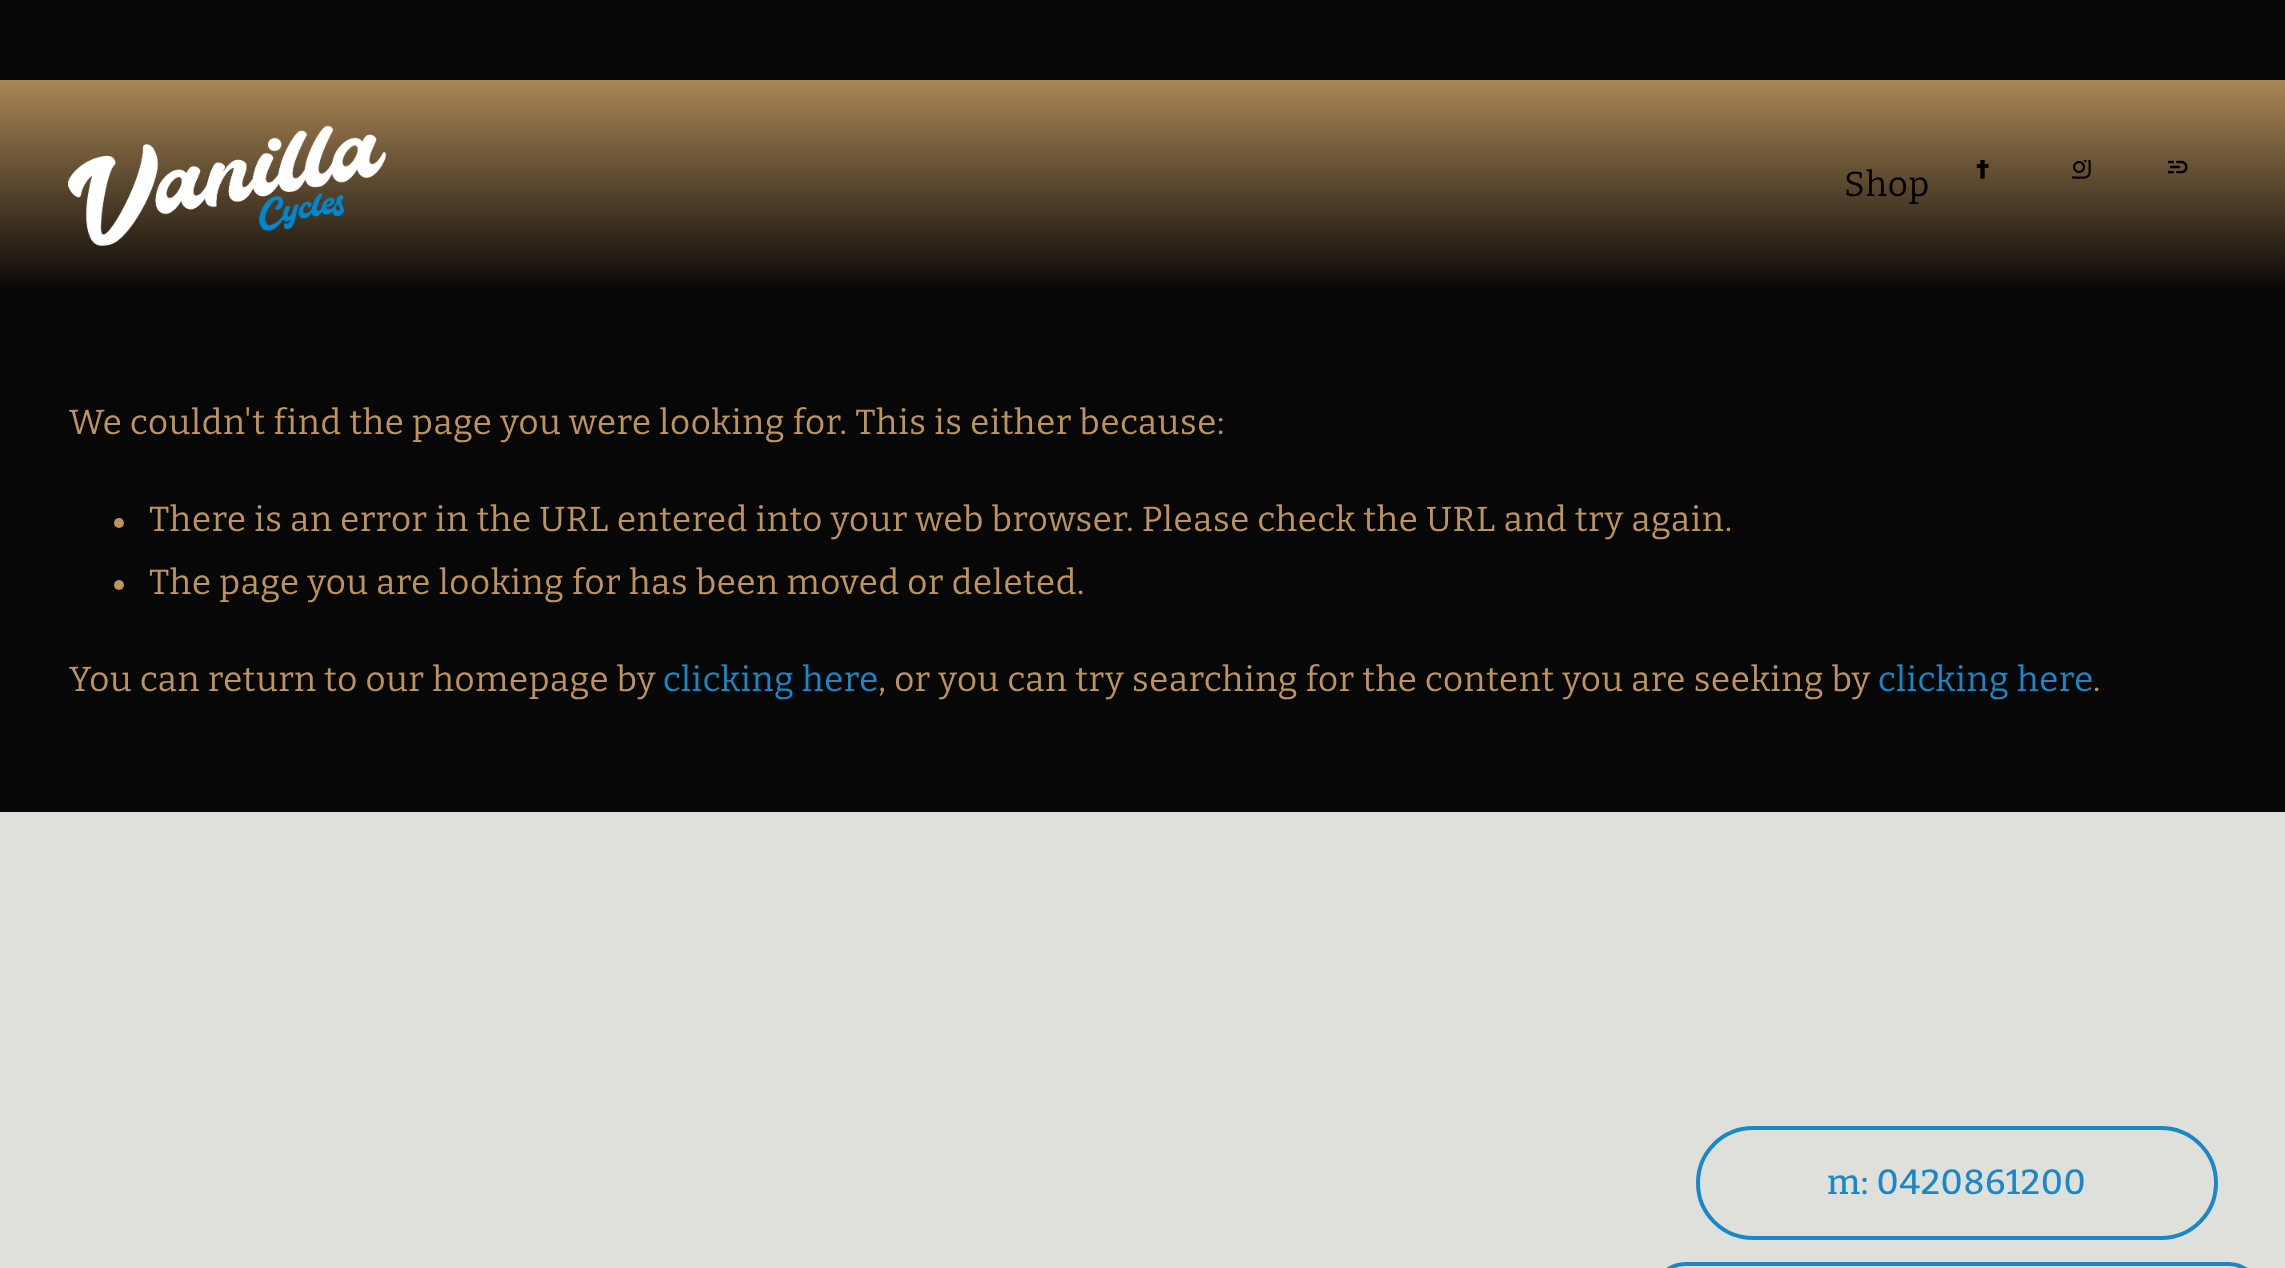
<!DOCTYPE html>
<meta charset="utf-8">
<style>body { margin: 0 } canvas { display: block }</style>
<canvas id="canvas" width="2285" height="1268"></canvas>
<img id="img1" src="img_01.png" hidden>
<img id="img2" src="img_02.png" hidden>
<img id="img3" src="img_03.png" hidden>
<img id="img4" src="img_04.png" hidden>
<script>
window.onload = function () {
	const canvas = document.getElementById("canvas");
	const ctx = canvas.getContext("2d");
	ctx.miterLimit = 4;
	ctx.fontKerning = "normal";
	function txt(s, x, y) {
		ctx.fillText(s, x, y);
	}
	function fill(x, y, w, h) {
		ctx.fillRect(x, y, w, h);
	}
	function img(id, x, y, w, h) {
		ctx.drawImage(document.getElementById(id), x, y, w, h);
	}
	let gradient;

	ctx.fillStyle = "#070707";
	fill(0, 0, 2285, 1268);
	gradient = ctx.createLinearGradient(1143, 80, 1143, 292);
	gradient.addColorStop(0, "#AA8654");
	gradient.addColorStop(1, "#070707");
	ctx.fillStyle = gradient;
	fill(0, 80, 2285, 209);
	img("img1", 68, 125, 319, 121);
	img("img2", 1976, 160, 13, 19);
	img("img3", 2072, 160, 19, 19);
	img("img4", 2168, 160, 20, 14);
	ctx.fillStyle = "#BC945C";
	ctx.beginPath();
	ctx.arc(119, 523, 5, 0, Math.PI * 2);
	ctx.fill();
	ctx.beginPath();
	ctx.arc(119, 585, 5, 0, Math.PI * 2);
	ctx.fill();
	ctx.fillStyle = "#E0E0DB";
	fill(0, 812, 2285, 456);
	ctx.beginPath();
	ctx.roundRect(1698, 1128, 518, 110, 55);
	ctx.strokeStyle = "#1988C8";
	ctx.lineWidth = 4;
	ctx.stroke();
	ctx.beginPath();
	ctx.roundRect(1654, 1264, 606, 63, 55);
	ctx.stroke();
	ctx.letterSpacing = "0.7px";
	ctx.font = "34.75px Bitter";
	ctx.fillStyle = "#000000";
	txt("Shop", 1844, 196);
	ctx.fillStyle = "#BC945C";
	txt("We couldn't find the page you were looking for. This is either because:", 69, 434);
	txt("There is an error in the URL entered into your web browser. Please check the URL and try again.", 149, 531);
	txt("The page you are looking for has been moved or deleted.", 149, 594);
	txt("You can return to our homepage by", 69, 691);
	ctx.fillStyle = "#1988C8";
	txt("clicking here", 663, 691);
	ctx.fillStyle = "#BC945C";
	txt(", or you can try searching for the", 878, 691);
	txt("content you are seeking by", 1425, 691);
	ctx.fillStyle = "#1988C8";
	txt("clicking here", 1878, 691);
	ctx.fillStyle = "#BC945C";
	txt(".", 2093, 691);
	ctx.font = "500 34.75px Bitter";
	ctx.fillStyle = "#1988C8";
	txt("m: 0420861200", 1827, 1194);
};
</script>
